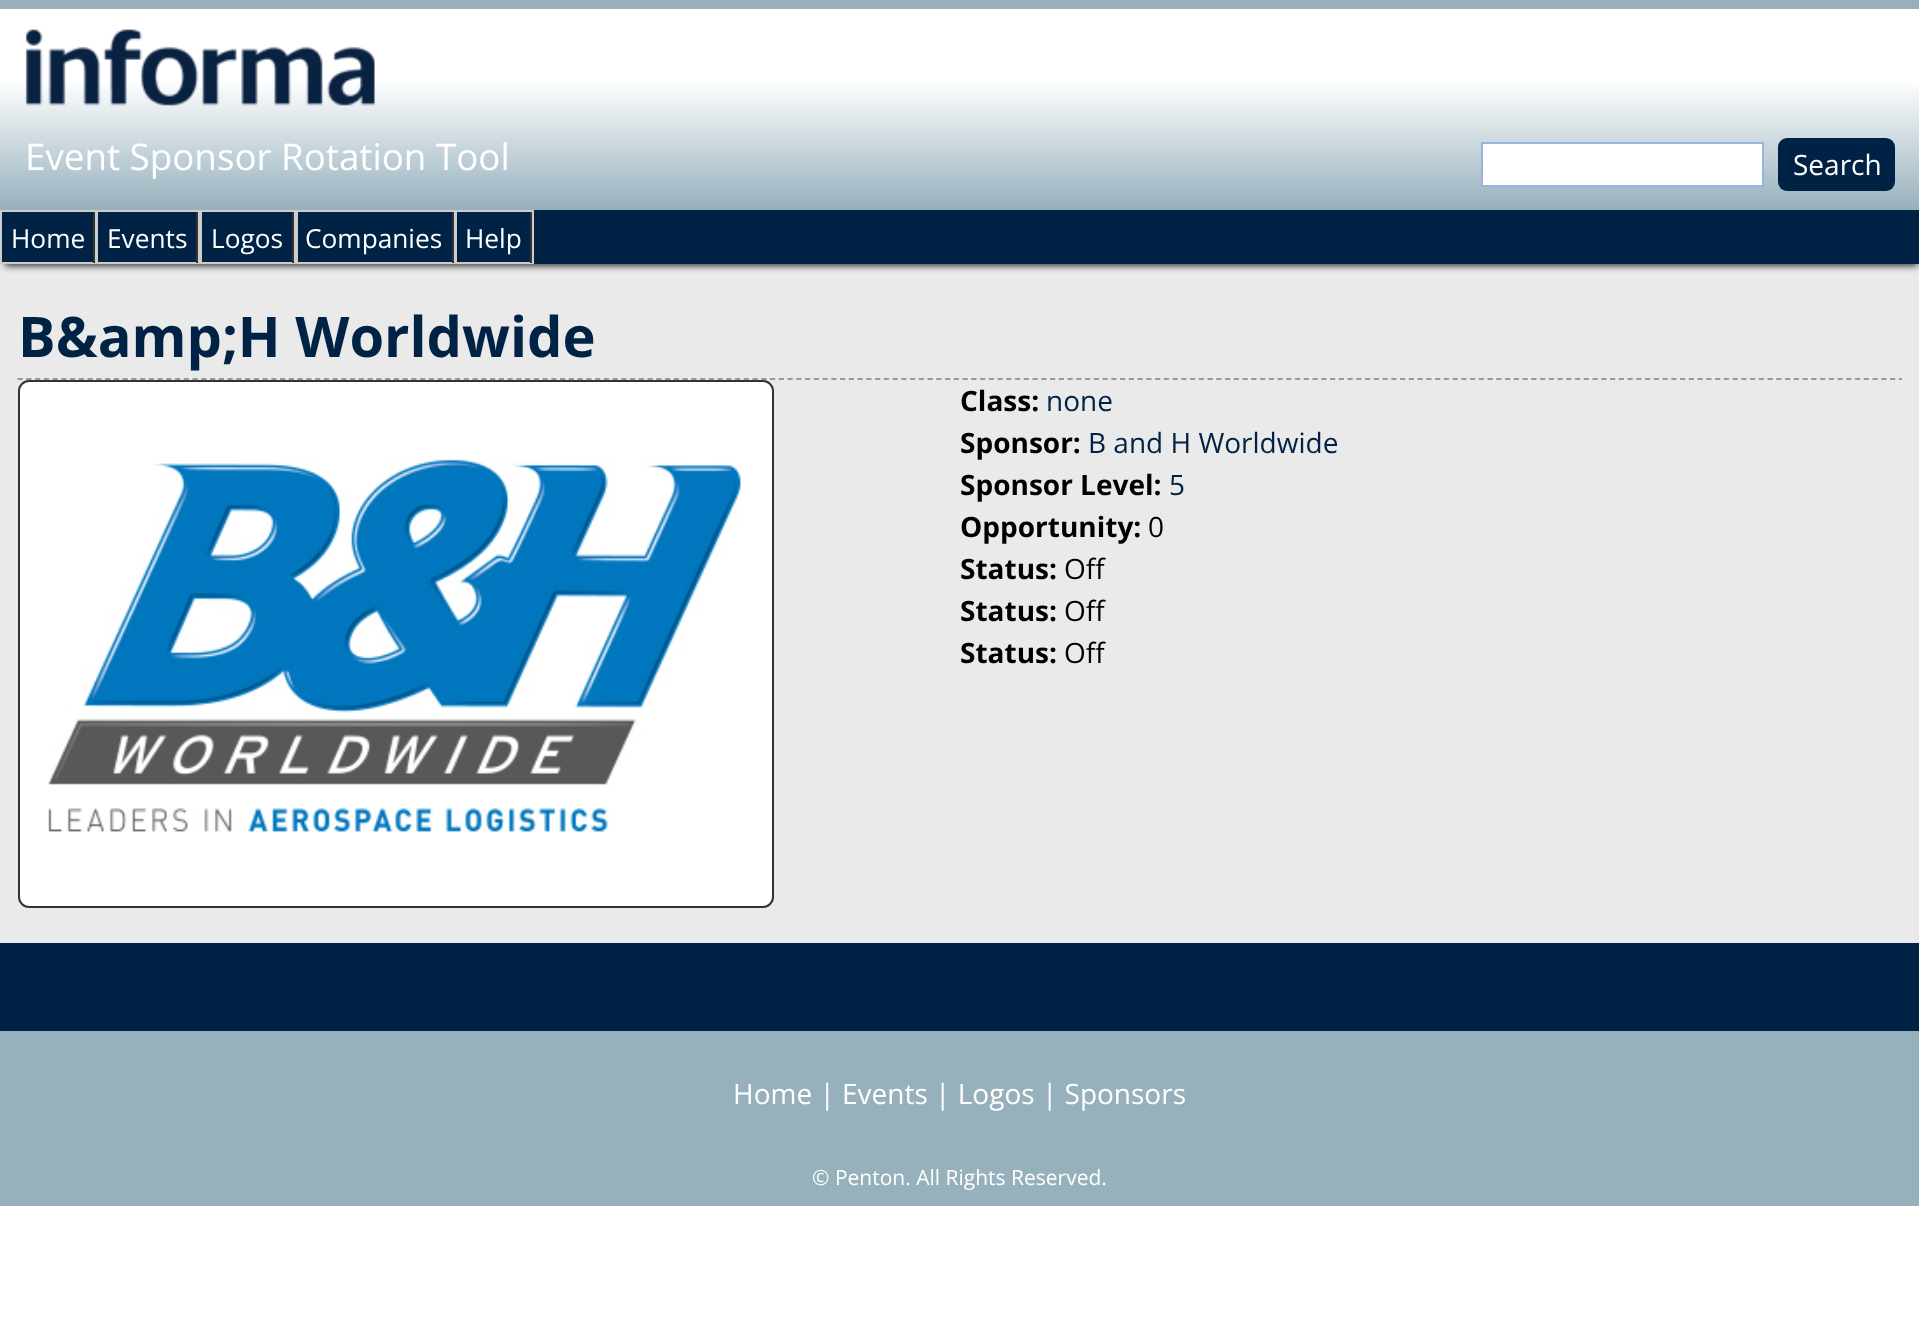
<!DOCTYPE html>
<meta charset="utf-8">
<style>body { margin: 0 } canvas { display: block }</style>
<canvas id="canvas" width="1919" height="1337"></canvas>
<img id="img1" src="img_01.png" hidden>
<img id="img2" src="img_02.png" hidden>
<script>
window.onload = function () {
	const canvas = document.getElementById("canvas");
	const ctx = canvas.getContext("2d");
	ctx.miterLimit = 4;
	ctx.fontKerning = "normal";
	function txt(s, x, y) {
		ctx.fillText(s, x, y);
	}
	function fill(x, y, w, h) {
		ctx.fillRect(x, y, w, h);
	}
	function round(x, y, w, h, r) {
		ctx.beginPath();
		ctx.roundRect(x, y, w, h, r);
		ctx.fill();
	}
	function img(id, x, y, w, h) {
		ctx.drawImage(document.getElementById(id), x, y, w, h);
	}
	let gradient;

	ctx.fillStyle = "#FFFFFF";
	fill(0, 0, 1919, 1337);
	gradient = ctx.createLinearGradient(960, 9, 960, 210);
	gradient.addColorStop(0.35, "#FFFFFF");
	gradient.addColorStop(1, "#96B0BC");
	ctx.fillStyle = gradient;
	fill(0, 82, 1919, 128);
	ctx.fillStyle = "#96B0BC";
	fill(0, 0, 1919, 9);
	img("img1", 25, 29, 350, 77);
	ctx.fillStyle = "#EAEAEA";
	fill(0, 264, 1919, 679);
	ctx.fillStyle = "#FFFFFF";
	ctx.beginPath();
	ctx.rect(1482, 143, 281, 43);
	ctx.fill();
	ctx.strokeStyle = "#97B5E1";
	ctx.lineWidth = 2;
	ctx.stroke();
	ctx.fillStyle = "#002244";
	round(1778, 138, 117, 53, 9);
	ctx.fillStyle = "#333333";
	ctx.filter = "blur(3.5px)";
	ctx.beginPath();
	ctx.rect(5, 219, 1913, 47);
	ctx.fill();
	ctx.filter = "none";
	ctx.fillStyle = "#002244";
	fill(2, 210, 1917, 54);
	ctx.strokeStyle = "#CCCCCC";
	ctx.strokeRect(1, 211, 94, 52);
	ctx.fillStyle = "#333333";
	fill(93, 212, 2, 51);
	ctx.strokeRect(97, 211, 102, 52);
	fill(196, 212, 2, 51);
	ctx.strokeRect(201, 211, 94, 52);
	fill(292, 212, 2, 51);
	ctx.strokeRect(297, 211, 157, 52);
	fill(452, 212, 2, 51);
	ctx.strokeRect(456, 211, 77, 52);
	fill(530, 212, 2, 51);
	ctx.beginPath();
	ctx.moveTo(17.5, 379);
	ctx.lineTo(1902, 379);
	ctx.strokeStyle = "#999999";
	ctx.lineWidth = 1.8;
	ctx.setLineDash([5.25, 3.5]);
	ctx.stroke();
	ctx.fillStyle = "#FFFFFF";
	ctx.beginPath();
	ctx.roundRect(19, 381, 754, 526, 10);
	ctx.fill();
	ctx.strokeStyle = "#333333";
	ctx.lineWidth = 2;
	ctx.setLineDash([]);
	ctx.stroke();
	img("img2", 48, 459, 693, 373);
	ctx.fillStyle = "#96B0BC";
	fill(0, 1031, 1919, 175);
	ctx.fillStyle = "#002244";
	fill(0, 943, 1919, 88);
	ctx.font = "36.75px Open Sans";
	ctx.fillStyle = "#FFFFFF";
	txt("Event Sponsor Rotation Tool", 25, 170);
	ctx.font = "28px Open Sans";
	txt("Search", 1793, 175);
	ctx.font = "26.25px Open Sans";
	txt("Home", 11, 248);
	txt("Events", 107, 248);
	txt("Logos", 211, 248);
	txt("Companies", 305, 248);
	txt("Help", 465, 248);
	ctx.font = "bold 56px Open Sans";
	ctx.fillStyle = "#002244";
	txt("B&amp;H Worldwide", 18, 357);
	ctx.font = "bold 28px Open Sans";
	ctx.fillStyle = "#000000";
	txt("Class:", 960, 411);
	ctx.font = "28px Open Sans";
	ctx.fillStyle = "#002244";
	txt("none", 1046, 411);
	ctx.font = "bold 28px Open Sans";
	ctx.fillStyle = "#000000";
	txt("Sponsor:", 960, 453);
	ctx.font = "28px Open Sans";
	ctx.fillStyle = "#002244";
	txt("B and H Worldwide", 1088, 453);
	ctx.font = "bold 28px Open Sans";
	ctx.fillStyle = "#000000";
	txt("Sponsor Level:", 960, 495);
	ctx.font = "28px Open Sans";
	ctx.fillStyle = "#002244";
	txt("5", 1169, 495);
	ctx.font = "bold 28px Open Sans";
	ctx.fillStyle = "#000000";
	txt("Opportunity:", 960, 537);
	ctx.font = "28px Open Sans";
	txt("0", 1148, 537);
	ctx.font = "bold 28px Open Sans";
	txt("Status:", 960, 579);
	ctx.font = "28px Open Sans";
	txt("Off", 1064, 579);
	ctx.font = "bold 28px Open Sans";
	txt("Status:", 960, 621);
	ctx.font = "28px Open Sans";
	txt("Off", 1064, 621);
	ctx.font = "bold 28px Open Sans";
	txt("Status:", 960, 663);
	ctx.font = "28px Open Sans";
	txt("Off", 1064, 663);
	ctx.fillStyle = "#FFFFFF";
	txt("Home | Events | Logos | Sponsors", 733, 1104);
	ctx.font = "21px Open Sans";
	txt("© Penton. All Rights Reserved.", 812, 1185);
};
</script>
